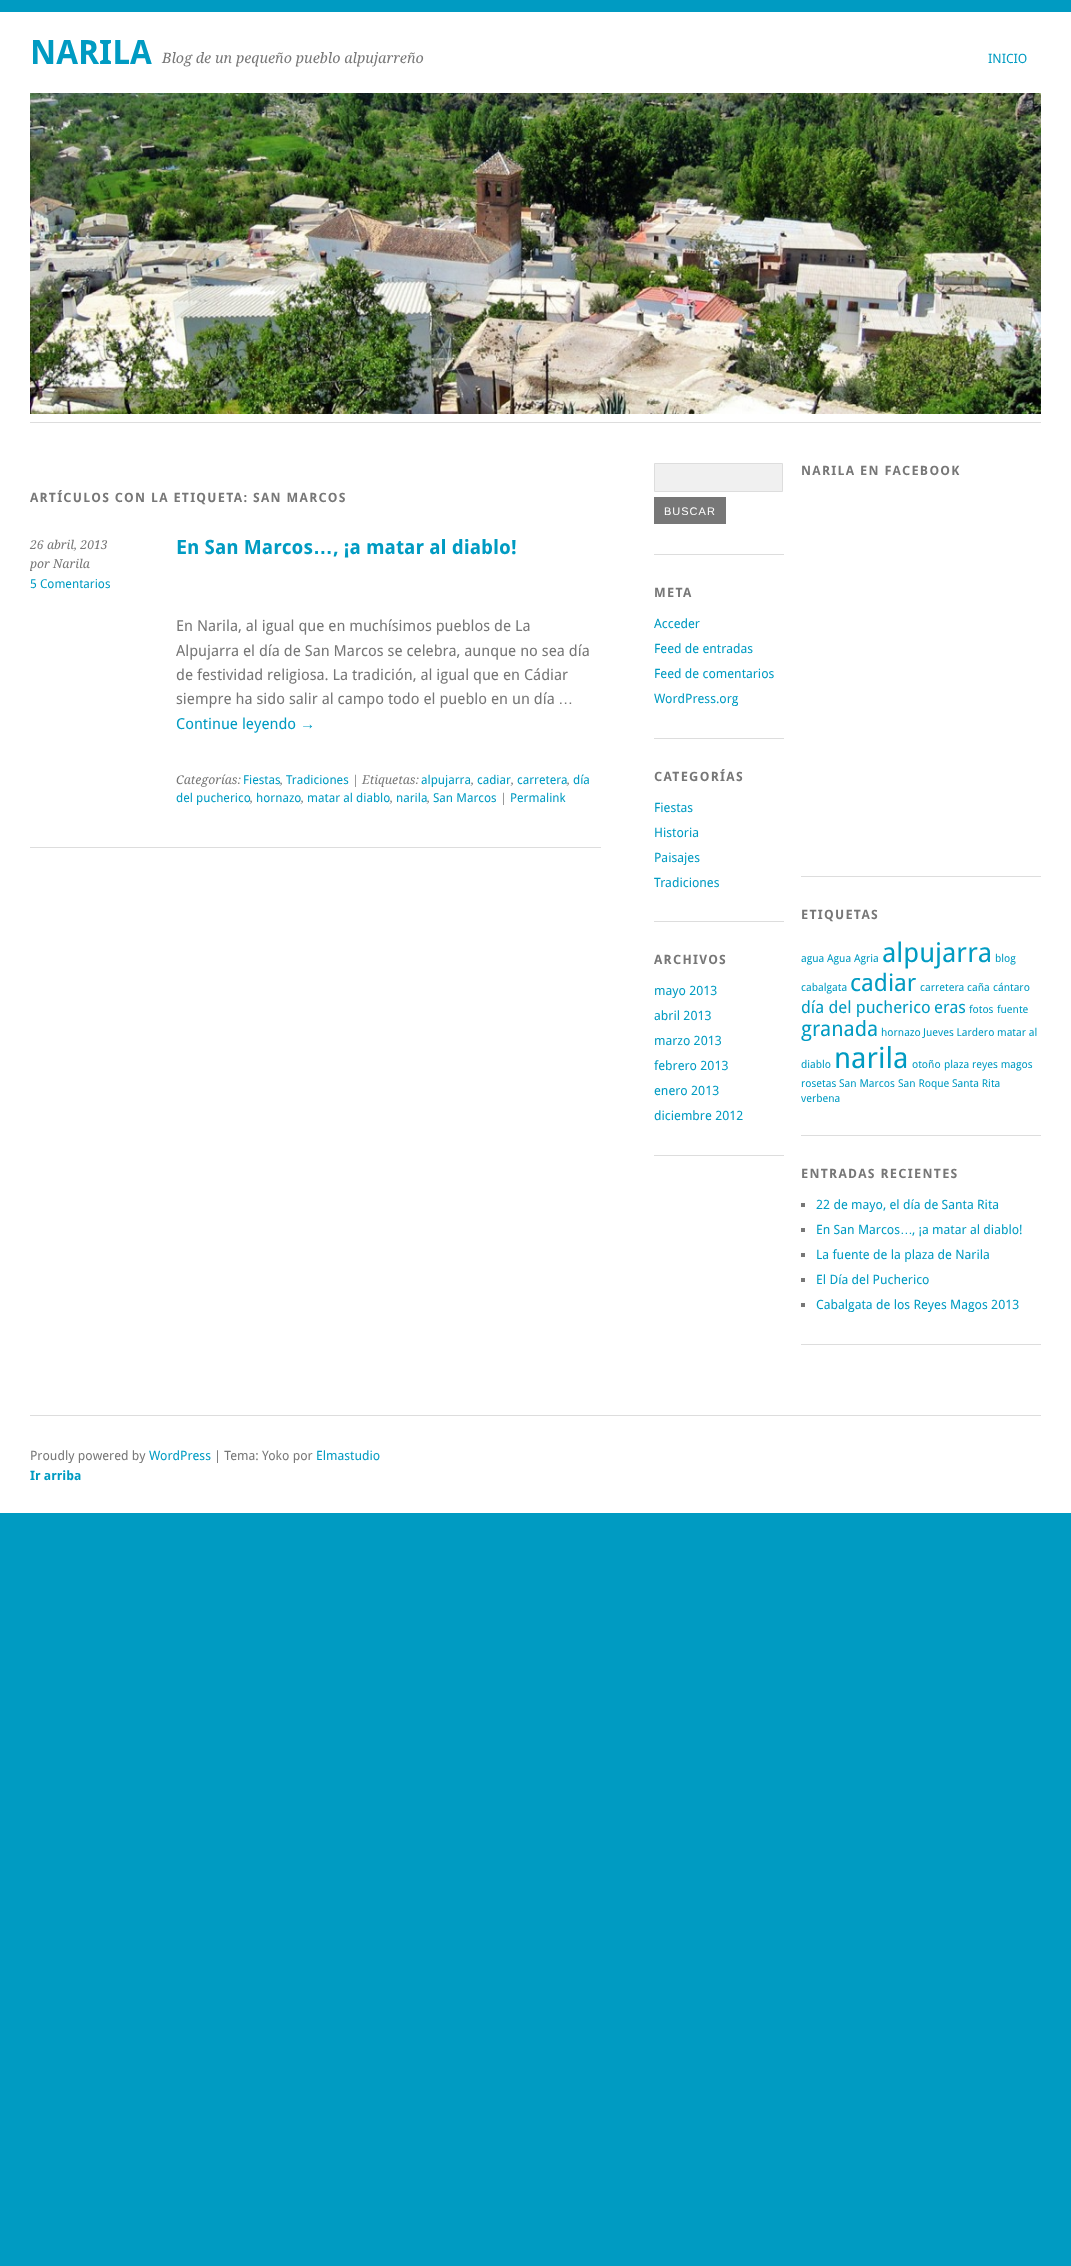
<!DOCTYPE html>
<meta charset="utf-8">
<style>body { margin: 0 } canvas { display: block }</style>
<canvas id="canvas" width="1071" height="2266"></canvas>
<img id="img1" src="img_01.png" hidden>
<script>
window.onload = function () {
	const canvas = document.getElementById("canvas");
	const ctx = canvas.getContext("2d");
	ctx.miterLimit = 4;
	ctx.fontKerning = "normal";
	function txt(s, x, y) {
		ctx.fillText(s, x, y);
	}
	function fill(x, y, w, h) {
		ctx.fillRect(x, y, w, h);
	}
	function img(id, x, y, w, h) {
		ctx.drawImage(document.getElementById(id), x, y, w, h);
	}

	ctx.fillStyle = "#009BC2";
	fill(0, 0, 1071, 2266);
	ctx.fillStyle = "#FFFFFF";
	fill(0, 12, 1071, 1501);
	img("img1", 30, 93, 1011, 321);
	ctx.fillStyle = "#DDDDDD";
	fill(30, 422, 1011, 1);
	fill(30, 1415, 1011, 1);
	fill(30, 847, 571, 1);
	fill(654, 554, 130, 1);
	ctx.fillStyle = "#F0F0F0";
	ctx.beginPath();
	ctx.rect(654.5, 463.5, 128, 28);
	ctx.fill();
	ctx.strokeStyle = "#DDDDDD";
	ctx.stroke();
	ctx.fillStyle = "#777777";
	fill(654, 497, 72, 27);
	ctx.fillStyle = "#DDDDDD";
	fill(654, 738, 130, 1);
	fill(654, 921, 130, 1);
	fill(654, 1155, 130, 1);
	fill(801, 876, 240, 1);
	fill(801, 1135, 240, 1);
	fill(801, 1344, 240, 1);
	ctx.fillStyle = "#777777";
	fill(801, 1203, 4, 4);
	fill(801, 1228, 4, 4);
	fill(801, 1253, 4, 4);
	fill(801, 1278, 4, 4);
	fill(801, 1303, 4, 4);
	ctx.font = "bold 33.5px Droid Sans";
	ctx.fillStyle = "#009BC2";
	txt("NARILA", 30, 64);
	ctx.font = "italic 14.4px Droid Serif";
	ctx.fillStyle = "#777777";
	txt("Blog de un pequeño pueblo alpujarreño", 162, 63);
	ctx.font = "12.8px Droid Sans";
	ctx.fillStyle = "#009BC2";
	txt("INICIO", 988, 63);
	ctx.letterSpacing = "1.3px";
	ctx.font = "bold 12.8px Droid Sans";
	ctx.fillStyle = "#777777";
	txt("ARTÍCULOS CON LA ETIQUETA: SAN MARCOS", 30, 502);
	ctx.letterSpacing = "0px";
	ctx.font = "italic 12.25px Droid Serif";
	txt("26 abril, 2013", 30, 549);
	txt("por Narila", 30, 568);
	ctx.font = "12.25px Droid Sans";
	ctx.fillStyle = "#009BC2";
	txt("5 Comentarios", 30, 588);
	ctx.font = "bold 19.75px Droid Sans";
	txt("En San Marcos", 176, 554);
	ctx.font = "bold 19.75px Liberation Sans";
	txt("…", 313, 554);
	ctx.font = "bold 19.75px Droid Sans";
	txt(", ¡a matar al diablo!", 333, 554);
	ctx.font = "15.2px Droid Sans";
	ctx.fillStyle = "#777777";
	txt("En Narila, al igual que en muchísimos pueblos de La", 176, 631);
	txt("Alpujarra el día de San Marcos se celebra, aunque no sea día", 176, 656);
	txt("de festividad religiosa. La tradición, al igual que en Cádiar", 176, 680);
	txt("siempre ha sido salir al campo todo el pueblo en un día", 176, 704);
	ctx.font = "15.2px Liberation Sans";
	txt("…", 558, 704);
	ctx.font = "15.2px Droid Sans";
	ctx.fillStyle = "#009BC2";
	txt("Continue leyendo", 176, 729);
	ctx.font = "15.2px Liberation Sans";
	txt("→", 300, 729);
	ctx.font = "italic 12.25px Droid Serif";
	ctx.fillStyle = "#777777";
	txt("Categorías:", 176, 784);
	ctx.font = "12.25px Droid Sans";
	ctx.fillStyle = "#009BC2";
	txt("Fiestas", 243, 784);
	ctx.font = "italic 12.25px Droid Serif";
	ctx.fillStyle = "#777777";
	txt(",", 280, 784);
	ctx.font = "12.25px Droid Sans";
	ctx.fillStyle = "#009BC2";
	txt("Tradiciones", 286, 784);
	ctx.font = "italic 12.25px Droid Serif";
	ctx.fillStyle = "#777777";
	txt("| Etiquetas:", 352, 784);
	ctx.font = "12.25px Droid Sans";
	ctx.fillStyle = "#009BC2";
	txt("alpujarra", 421, 784);
	ctx.font = "italic 12.25px Droid Serif";
	ctx.fillStyle = "#777777";
	txt(",", 471, 784);
	ctx.font = "12.25px Droid Sans";
	ctx.fillStyle = "#009BC2";
	txt("cadiar", 477, 784);
	ctx.font = "italic 12.25px Droid Serif";
	ctx.fillStyle = "#777777";
	txt(",", 511, 784);
	ctx.font = "12.25px Droid Sans";
	ctx.fillStyle = "#009BC2";
	txt("carretera", 517, 784);
	ctx.font = "italic 12.25px Droid Serif";
	ctx.fillStyle = "#777777";
	txt(",", 567, 784);
	ctx.font = "12.25px Droid Sans";
	ctx.fillStyle = "#009BC2";
	txt("día", 573, 784);
	txt("del pucherico", 176, 802);
	ctx.font = "italic 12.25px Droid Serif";
	ctx.fillStyle = "#777777";
	txt(",", 250, 802);
	ctx.font = "12.25px Droid Sans";
	ctx.fillStyle = "#009BC2";
	txt("hornazo", 256, 802);
	ctx.font = "italic 12.25px Droid Serif";
	ctx.fillStyle = "#777777";
	txt(",", 301, 802);
	ctx.font = "12.25px Droid Sans";
	ctx.fillStyle = "#009BC2";
	txt("matar al diablo", 307, 802);
	ctx.font = "italic 12.25px Droid Serif";
	ctx.fillStyle = "#777777";
	txt(",", 390, 802);
	ctx.font = "12.25px Droid Sans";
	ctx.fillStyle = "#009BC2";
	txt("narila", 396, 802);
	ctx.font = "italic 12.25px Droid Serif";
	ctx.fillStyle = "#777777";
	txt(",", 427, 802);
	ctx.font = "12.25px Droid Sans";
	ctx.fillStyle = "#009BC2";
	txt("San Marcos", 433, 802);
	ctx.font = "italic 12.25px Droid Serif";
	ctx.fillStyle = "#777777";
	txt("|", 500, 802);
	ctx.font = "12.25px Droid Sans";
	ctx.fillStyle = "#009BC2";
	txt("Permalink", 510, 802);
	ctx.letterSpacing = "1px";
	ctx.font = "11px Liberation Sans";
	ctx.fillStyle = "#FFFFFF";
	txt("BUSCAR", 664, 515);
	ctx.letterSpacing = "1.3px";
	ctx.font = "bold 12.8px Droid Sans";
	ctx.fillStyle = "#777777";
	txt("META", 654, 597);
	ctx.letterSpacing = "0px";
	ctx.font = "12.8px Droid Sans";
	ctx.fillStyle = "#009BC2";
	txt("Acceder", 654, 628);
	txt("Feed de entradas", 654, 653);
	txt("Feed de comentarios", 654, 678);
	txt("WordPress.org", 654, 703);
	ctx.letterSpacing = "1.3px";
	ctx.font = "bold 12.8px Droid Sans";
	ctx.fillStyle = "#777777";
	txt("CATEGORÍAS", 654, 781);
	ctx.letterSpacing = "0px";
	ctx.font = "12.8px Droid Sans";
	ctx.fillStyle = "#009BC2";
	txt("Fiestas", 654, 812);
	txt("Historia", 654, 837);
	txt("Paisajes", 654, 862);
	txt("Tradiciones", 654, 887);
	ctx.letterSpacing = "1.3px";
	ctx.font = "bold 12.8px Droid Sans";
	ctx.fillStyle = "#777777";
	txt("ARCHIVOS", 654, 964);
	ctx.letterSpacing = "0px";
	ctx.font = "12.8px Droid Sans";
	ctx.fillStyle = "#009BC2";
	txt("mayo 2013", 654, 995);
	txt("abril 2013", 654, 1020);
	txt("marzo 2013", 654, 1045);
	txt("febrero 2013", 654, 1070);
	txt("enero 2013", 654, 1095);
	txt("diciembre 2012", 654, 1120);
	ctx.letterSpacing = "1.3px";
	ctx.font = "bold 12.8px Droid Sans";
	ctx.fillStyle = "#777777";
	txt("NARILA EN FACEBOOK", 801, 475);
	txt("ETIQUETAS", 801, 919);
	ctx.letterSpacing = "0px";
	ctx.font = "10.75px Droid Sans";
	ctx.fillStyle = "#009BC2";
	txt("agua", 801, 962);
	txt("Agua Agria", 827, 962);
	ctx.font = "27px Droid Sans";
	txt("alpujarra", 882, 962);
	ctx.font = "10.75px Droid Sans";
	txt("blog", 995, 962);
	txt("cabalgata", 801, 991);
	ctx.font = "24px Droid Sans";
	txt("cadiar", 850, 991);
	ctx.font = "10.75px Droid Sans";
	txt("carretera", 920, 991);
	txt("caña", 967, 991);
	txt("cántaro", 993, 991);
	ctx.font = "16.75px Droid Sans";
	txt("día del pucherico", 801, 1013);
	txt("eras", 934, 1013);
	ctx.font = "10.75px Droid Sans";
	txt("fotos", 969, 1013);
	txt("fuente", 997, 1013);
	ctx.font = "21px Droid Sans";
	txt("granada", 801, 1036);
	ctx.font = "10.75px Droid Sans";
	txt("hornazo", 881, 1036);
	txt("Jueves Lardero", 923, 1036);
	txt("matar al", 997, 1036);
	txt("diablo", 801, 1068);
	ctx.font = "29px Droid Sans";
	txt("narila", 834, 1068);
	ctx.font = "10.75px Droid Sans";
	txt("otoño", 912, 1068);
	txt("plaza", 944, 1068);
	txt("reyes magos", 972, 1068);
	txt("rosetas", 801, 1087);
	txt("San Marcos", 839, 1087);
	txt("San Roque", 898, 1087);
	txt("Santa Rita", 952, 1087);
	txt("verbena", 801, 1102);
	ctx.letterSpacing = "1.3px";
	ctx.font = "bold 12.8px Droid Sans";
	ctx.fillStyle = "#777777";
	txt("ENTRADAS RECIENTES", 801, 1178);
	ctx.letterSpacing = "0px";
	ctx.font = "12.8px Droid Sans";
	ctx.fillStyle = "#009BC2";
	txt("22 de mayo, el día de Santa Rita", 816, 1209);
	txt("En San Marcos", 816, 1234);
	txt(", ¡a matar al diablo!", 912, 1234);
	ctx.font = "12.8px Liberation Sans";
	txt("…", 900, 1234);
	ctx.font = "12.8px Droid Sans";
	txt("La fuente de la plaza de Narila", 816, 1259);
	txt("El Día del Pucherico", 816, 1284);
	txt("Cabalgata de los Reyes Magos 2013", 816, 1309);
	ctx.fillStyle = "#777777";
	txt("Proudly powered by", 30, 1460);
	ctx.fillStyle = "#009BC2";
	txt("WordPress", 149, 1460);
	ctx.fillStyle = "#777777";
	txt("| Tema: Yoko por", 214, 1460);
	ctx.fillStyle = "#009BC2";
	txt("Elmastudio", 316, 1460);
	ctx.font = "bold 12.8px Droid Sans";
	txt("Ir arriba", 30, 1480);
};
</script>
